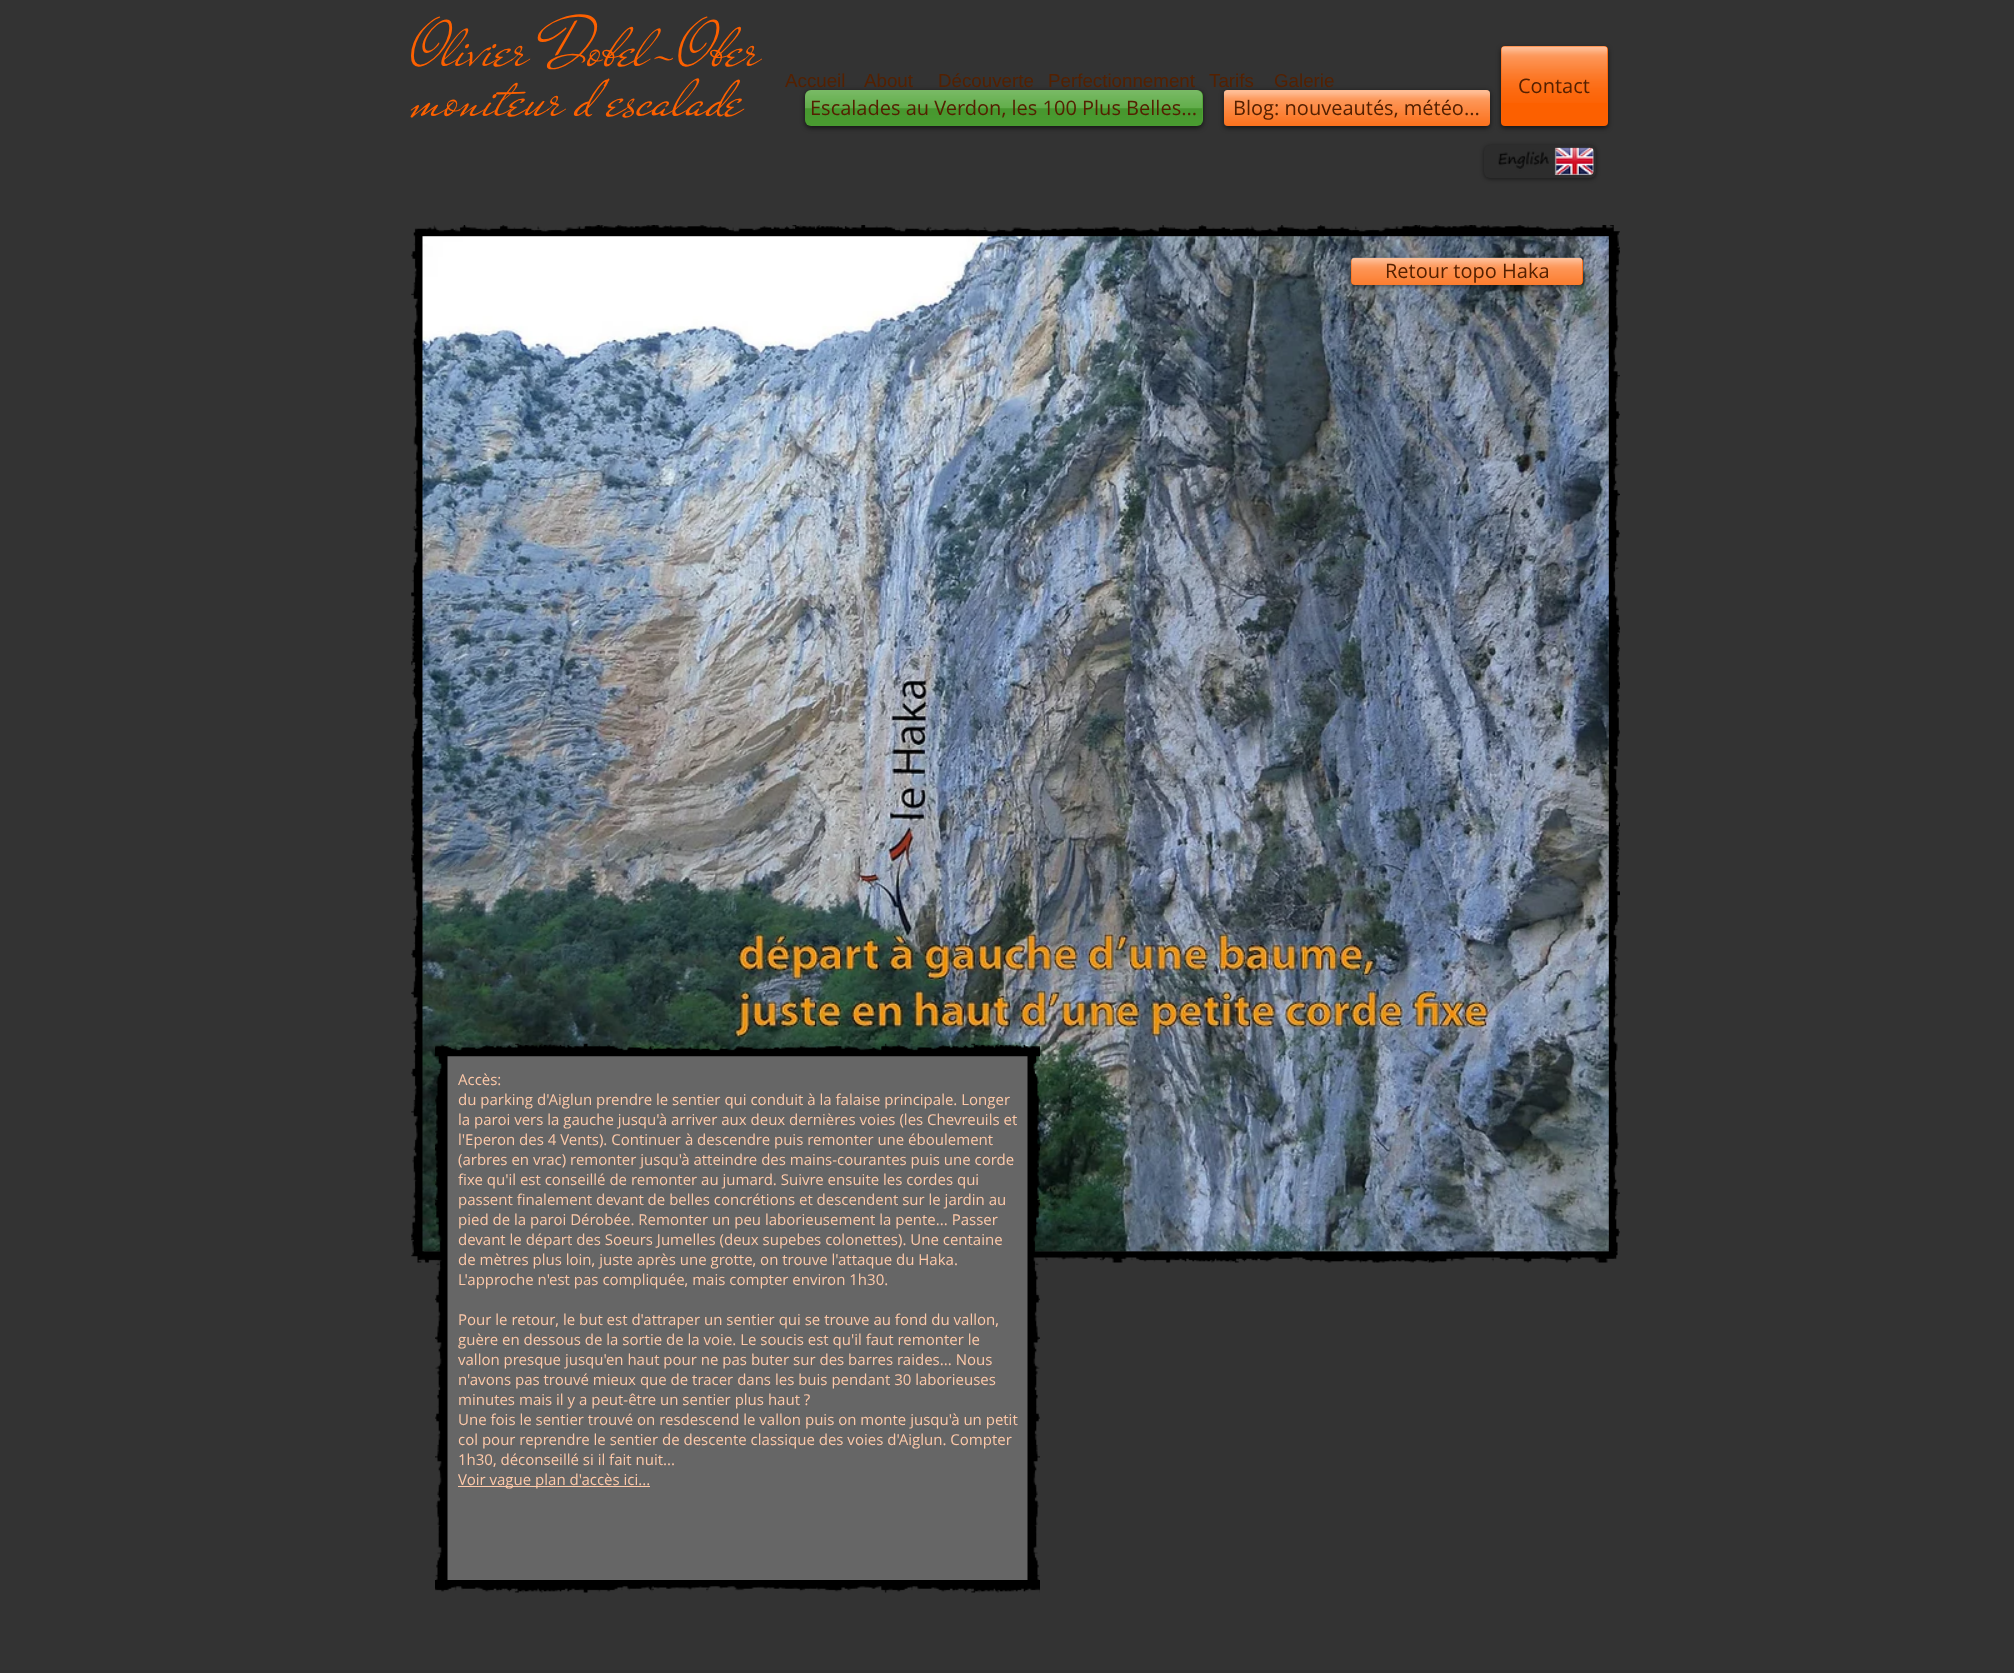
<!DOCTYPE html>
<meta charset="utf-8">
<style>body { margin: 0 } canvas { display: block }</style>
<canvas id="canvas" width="2014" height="1673"></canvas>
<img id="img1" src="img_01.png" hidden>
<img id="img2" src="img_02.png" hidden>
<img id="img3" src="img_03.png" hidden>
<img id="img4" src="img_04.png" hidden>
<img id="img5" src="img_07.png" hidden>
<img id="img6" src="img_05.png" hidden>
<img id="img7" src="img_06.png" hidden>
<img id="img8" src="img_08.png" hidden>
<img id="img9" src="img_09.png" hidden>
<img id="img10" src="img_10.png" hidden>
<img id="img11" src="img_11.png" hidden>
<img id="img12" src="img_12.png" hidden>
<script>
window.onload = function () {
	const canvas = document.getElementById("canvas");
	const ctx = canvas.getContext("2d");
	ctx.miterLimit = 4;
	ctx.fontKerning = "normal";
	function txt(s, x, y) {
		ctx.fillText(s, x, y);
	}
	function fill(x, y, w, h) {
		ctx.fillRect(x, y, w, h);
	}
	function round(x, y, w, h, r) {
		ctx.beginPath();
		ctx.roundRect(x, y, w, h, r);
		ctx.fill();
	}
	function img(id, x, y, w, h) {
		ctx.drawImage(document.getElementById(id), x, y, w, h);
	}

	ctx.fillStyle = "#333333";
	fill(0, 0, 2014, 1673);
	ctx.fillStyle = "rgba(0, 0, 0, 0.6)";
	ctx.filter = "blur(2.5px)";
	ctx.beginPath();
	ctx.roundRect(1501, 48, 107, 80, 4);
	ctx.fill();
	ctx.filter = "none";
	ctx.fillStyle = "#FC6000";
	round(1501, 46, 107, 80, 4);
	img("img1", 1501, 46, 107, 57);
	ctx.fillStyle = "rgba(0, 0, 0, 0.6)";
	ctx.filter = "blur(2.5px)";
	ctx.beginPath();
	ctx.roundRect(805, 91, 398, 37, 6);
	ctx.fill();
	ctx.filter = "none";
	ctx.fillStyle = "#4DA333";
	round(805, 90, 398, 36, 6);
	img("img2", 805, 90, 398, 36);
	ctx.fillStyle = "rgba(0, 0, 0, 0.6)";
	ctx.filter = "blur(2.5px)";
	ctx.beginPath();
	ctx.roundRect(1224, 91, 266, 37, 4);
	ctx.fill();
	ctx.filter = "none";
	ctx.fillStyle = "#FC6000";
	round(1224, 90, 266, 36, 4);
	img("img3", 1223, 90, 267, 36);
	ctx.fillStyle = "rgba(0, 0, 0, 0.5)";
	ctx.filter = "blur(2px)";
	ctx.beginPath();
	ctx.roundRect(1484, 146, 112, 33, 6);
	ctx.fill();
	ctx.filter = "none";
	ctx.fillStyle = "#2D2D2D";
	round(1484, 145, 112, 33, 6);
	img("img4", 1498, 147, 96, 28);
	img("img5", 417, 231, 1203, 1032);
	img("img6", 411, 225, 1203, 1032);
	img("img7", 422, 236, 1187, 1016);
	ctx.fillStyle = "rgba(0, 0, 0, 0.6)";
	ctx.filter = "blur(2.5px)";
	ctx.beginPath();
	ctx.roundRect(1351, 259, 232, 27, 4);
	ctx.fill();
	ctx.filter = "none";
	ctx.fillStyle = "#FC6000";
	round(1351, 258, 232, 27, 4);
	img("img8", 1351, 257, 232, 28);
	ctx.fillStyle = "#666666";
	fill(447, 1056, 581, 524);
	img("img9", 435, 1043, 605, 14);
	img("img10", 435, 1580, 605, 13);
	img("img11", 435, 1056, 13, 524);
	img("img12", 1027, 1056, 13, 524);
	ctx.fillStyle = "#FEC9A9";
	fill(458, 1486, 192, 1);
	ctx.font = "68.75px Mr De Haviland";
	ctx.fillStyle = "#FC6000";
	txt("Olivier Dobel-Ober", 411, 65);
	txt("moniteur d'escalade", 411, 115);
	ctx.font = "20px Open Sans";
	ctx.fillStyle = "#542000";
	txt("Contact", 1518, 93);
	txt("Escalades au Verdon, les 100 Plus Belles...", 810, 115);
	txt("Blog: nouveautés, météo...", 1233, 115);
	ctx.font = "18.75px Liberation Sans";
	txt("Accueil", 785, 87);
	txt("About", 864, 87);
	txt("Découverte", 938, 87);
	txt("Perfectionnement", 1048, 87);
	txt("Tarifs", 1209, 87);
	txt("Galerie", 1274, 87);
	ctx.font = "20px Open Sans";
	txt("Retour topo Haka", 1385, 278);
	ctx.font = "15px Open Sans";
	ctx.fillStyle = "#FEC9A9";
	txt("Accès:", 458, 1085);
	txt("du parking d'Aiglun prendre le sentier qui conduit à la falaise principale. Longer", 458, 1105);
	txt("la paroi vers la gauche jusqu'à arriver aux deux dernières voies (les Chevreuils et", 458, 1125);
	txt("l'Eperon des 4 Vents). Continuer à descendre puis remonter une éboulement", 458, 1145);
	txt("(arbres en vrac) remonter jusqu'à atteindre des mains-courantes puis une corde", 458, 1165);
	txt("fixe qu'il est conseillé de remonter au jumard. Suivre ensuite les cordes qui", 458, 1185);
	txt("passent finalement devant de belles concrétions et descendent sur le jardin au", 458, 1205);
	txt("pied de la paroi Dérobée. Remonter un peu laborieusement la pente... Passer", 458, 1225);
	txt("devant le départ des Soeurs Jumelles (deux supebes colonettes). Une centaine", 458, 1245);
	txt("de mètres plus loin, juste après une grotte, on trouve l'attaque du Haka.", 458, 1265);
	txt("L'approche n'est pas compliquée, mais compter environ 1h30.", 458, 1285);
	txt("Pour le retour, le but est d'attraper un sentier qui se trouve au fond du vallon,", 458, 1325);
	txt("guère en dessous de la sortie de la voie. Le soucis est qu'il faut remonter le", 458, 1345);
	txt("vallon presque jusqu'en haut pour ne pas buter sur des barres raides... Nous", 458, 1365);
	txt("n'avons pas trouvé mieux que de tracer dans les buis pendant 30 laborieuses", 458, 1385);
	txt("minutes mais il y a peut-être un sentier plus haut ?", 458, 1405);
	txt("Une fois le sentier trouvé on resdescend le vallon puis on monte jusqu'à un petit", 458, 1425);
	txt("col pour reprendre le sentier de descente classique des voies d'Aiglun. Compter", 458, 1445);
	txt("1h30, déconseillé si il fait nuit...", 458, 1465);
	txt("Voir vague plan d'accès ici...", 458, 1485);
};
</script>
